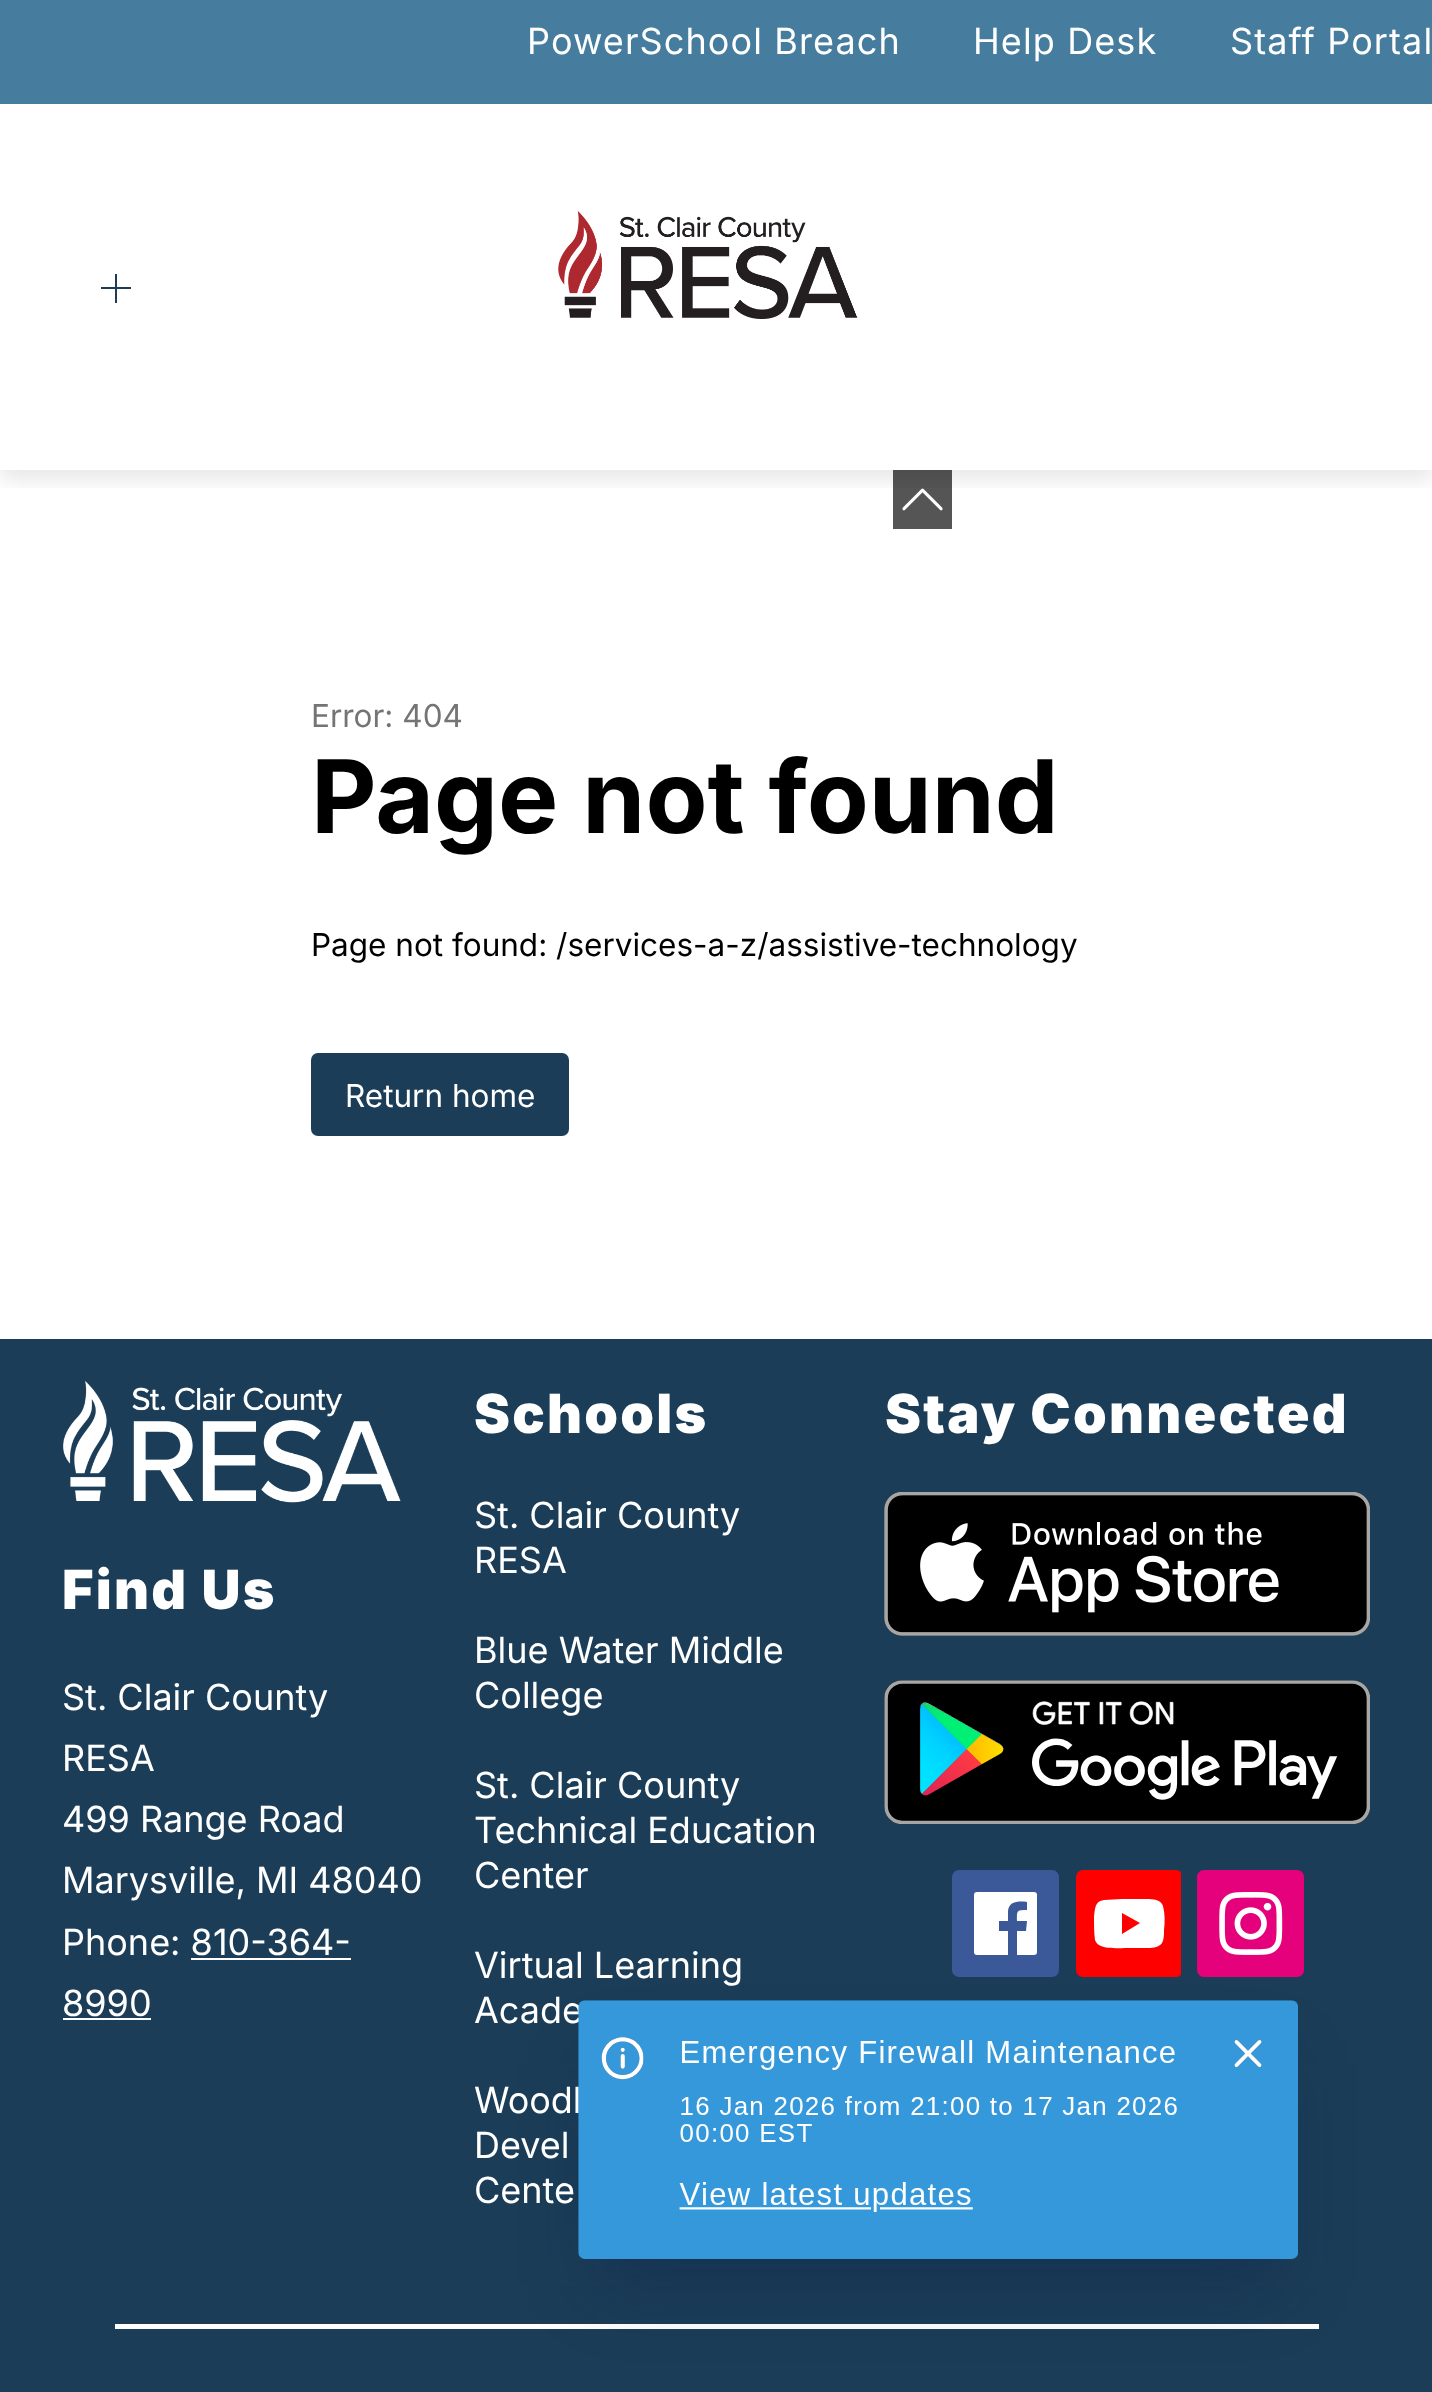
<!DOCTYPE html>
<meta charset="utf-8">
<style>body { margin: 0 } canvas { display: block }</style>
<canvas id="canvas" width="1432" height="2392"></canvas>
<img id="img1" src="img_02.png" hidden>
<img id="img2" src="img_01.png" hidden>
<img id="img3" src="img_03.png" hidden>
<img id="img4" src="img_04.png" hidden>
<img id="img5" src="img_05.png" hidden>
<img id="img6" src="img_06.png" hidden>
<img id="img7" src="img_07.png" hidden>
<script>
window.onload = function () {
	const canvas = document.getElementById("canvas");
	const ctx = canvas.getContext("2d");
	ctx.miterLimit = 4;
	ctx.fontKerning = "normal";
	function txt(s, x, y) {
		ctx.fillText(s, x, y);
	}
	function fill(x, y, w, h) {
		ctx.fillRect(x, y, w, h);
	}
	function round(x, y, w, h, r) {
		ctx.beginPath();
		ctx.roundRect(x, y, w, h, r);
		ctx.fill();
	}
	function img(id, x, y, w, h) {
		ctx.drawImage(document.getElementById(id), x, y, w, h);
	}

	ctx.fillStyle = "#FFFFFF";
	fill(0, 0, 1432, 2392);
	ctx.fillStyle = "#555555";
	fill(893, 470, 59, 59);
	img("img1", 902, 488, 41, 23);
	ctx.save();
	ctx.beginPath();
	ctx.rect(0, 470, 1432, 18);
	ctx.clip();
	ctx.fillStyle = "rgba(0, 0, 0, 0.1)";
	ctx.filter = "blur(11px)";
	ctx.beginPath();
	ctx.rect(0, -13, 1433, 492);
	ctx.fill();
	ctx.filter = "none";
	ctx.restore();
	ctx.fillStyle = "#467C9E";
	fill(0, 0, 1432, 104);
	ctx.fillStyle = "#1B3D57";
	fill(115, 274, 2, 29);
	fill(101, 287, 30, 2);
	img("img2", 558, 211, 300, 108);
	round(311, 1053, 258, 83, 7);
	fill(0, 1339, 1432, 1053);
	img("img3", 884, 1492, 486, 144);
	img("img4", 884, 1680, 486, 144);
	ctx.fillStyle = "#3B5998";
	round(952, 1870, 107, 107, 7);
	ctx.fillStyle = "#FFFFFF";
	ctx.beginPath();
	ctx.moveTo(1034, 1892);
	ctx.lineTo(977, 1892);
	ctx.bezierCurveTo(975, 1892, 974, 1893, 974, 1895);
	ctx.lineTo(974, 1952);
	ctx.bezierCurveTo(974, 1954, 975, 1955, 977, 1955);
	ctx.lineTo(1034, 1955);
	ctx.bezierCurveTo(1036, 1955, 1037, 1954, 1037, 1952);
	ctx.lineTo(1037, 1895);
	ctx.bezierCurveTo(1037, 1893, 1036, 1892, 1034, 1892);
	ctx.closePath();
	ctx.moveTo(1027, 1910);
	ctx.bezierCurveTo(1016, 1910, 1017, 1911, 1017, 1921);
	ctx.lineTo(1027, 1921);
	ctx.lineTo(1026, 1931);
	ctx.lineTo(1017, 1931);
	ctx.lineTo(1017, 1955);
	ctx.lineTo(1008, 1955);
	ctx.lineTo(1008, 1931);
	ctx.lineTo(999, 1931);
	ctx.lineTo(999, 1921);
	ctx.lineTo(1008, 1921);
	ctx.lineTo(1008, 1911);
	ctx.bezierCurveTo(1009, 1901, 1019, 1901, 1027, 1902);
	ctx.closePath();
	ctx.fill();
	ctx.save();
	ctx.beginPath();
	ctx.rect(1076, 1870, 105, 108);
	ctx.clip();
	ctx.fillStyle = "#FF0000";
	round(1076, 1870, 107, 107, 7);
	ctx.restore();
	ctx.beginPath();
	ctx.moveTo(1163, 1906);
	ctx.bezierCurveTo(1161, 1898, 1148, 1899, 1141, 1899);
	ctx.lineTo(1122, 1899);
	ctx.lineTo(1104, 1900);
	ctx.bezierCurveTo(1095, 1901, 1095, 1908, 1094, 1917);
	ctx.bezierCurveTo(1094, 1925, 1094, 1933, 1095, 1940);
	ctx.bezierCurveTo(1096, 1943, 1098, 1945, 1101, 1946);
	ctx.bezierCurveTo(1106, 1949, 1123, 1948, 1130, 1948);
	ctx.lineTo(1150, 1948);
	ctx.bezierCurveTo(1163, 1947, 1164, 1942, 1164, 1930);
	ctx.bezierCurveTo(1165, 1922, 1165, 1914, 1163, 1906);
	ctx.closePath();
	ctx.moveTo(1122, 1934);
	ctx.lineTo(1122, 1913);
	ctx.lineTo(1140, 1923);
	ctx.closePath();
	ctx.fill();
	img("img5", 1197, 1870, 107, 107);
	img("img6", 63, 1381, 338, 122);
	fill(191, 1958, 160, 2);
	fill(63, 2018, 88, 2);
	fill(115, 2324, 1204, 5);
	ctx.save();
	ctx.beginPath();
	ctx.moveTo(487, 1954);
	ctx.lineTo(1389, 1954);
	ctx.lineTo(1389, 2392);
	ctx.lineTo(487, 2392);
	ctx.closePath();
	ctx.moveTo(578, 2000);
	ctx.lineTo(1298, 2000);
	ctx.lineTo(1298, 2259);
	ctx.lineTo(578, 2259);
	ctx.closePath();
	ctx.clip("evenodd");
	ctx.fillStyle = "rgba(9, 20, 66, 0.25)";
	ctx.filter = "blur(36px)";
	ctx.beginPath();
	ctx.rect(596, 2063, 684, 223);
	ctx.fill();
	ctx.filter = "none";
	ctx.restore();
	ctx.letterSpacing = "1.1px";
	ctx.font = "36px Inter";
	txt("PowerSchool Breach", 527, 54);
	txt("Help Desk", 973, 54);
	txt("Staff Portal", 1230, 54);
	ctx.letterSpacing = "0px";
	ctx.font = "31.5px Inter";
	ctx.fillStyle = "#747474";
	txt("Error: 404", 311, 727);
	ctx.font = "bold 101.25px Inter";
	ctx.fillStyle = "#000000";
	txt("Page not found", 311, 833);
	ctx.font = "31.5px Inter";
	txt("Page not found: /services-a-z/assistive-technology", 311, 956);
	ctx.fillStyle = "#FFFFFF";
	txt("Return home", 345, 1107);
	ctx.letterSpacing = "2.25px";
	ctx.font = "900 54px Inter";
	txt("Schools", 474, 1433);
	ctx.letterSpacing = "0px";
	ctx.font = "36px Inter";
	txt("St. Clair County", 474, 1528);
	txt("RESA", 474, 1573);
	txt("Blue Water Middle", 474, 1663);
	txt("College", 474, 1708);
	txt("St. Clair County", 474, 1798);
	txt("Technical Education", 474, 1843);
	txt("Center", 474, 1888);
	txt("Virtual Learning", 474, 1978);
	txt("Acade", 474, 2023);
	txt("Woodl", 474, 2113);
	txt("Devel", 474, 2158);
	txt("Cente", 474, 2203);
	ctx.letterSpacing = "2.25px";
	ctx.font = "900 54px Inter";
	txt("Stay Connected", 885, 1433);
	txt("Find Us", 62, 1609);
	ctx.letterSpacing = "0px";
	ctx.font = "36px Inter";
	txt("St. Clair County", 62, 1710);
	txt("RESA", 62, 1771);
	txt("499 Range Road", 62, 1832);
	txt("Marysville, MI 48040", 62, 1893);
	txt("Phone: 810-364-", 62, 1955);
	txt("8990", 62, 2016);
	img("img7", 578, 2000, 720, 259);
};
</script>
